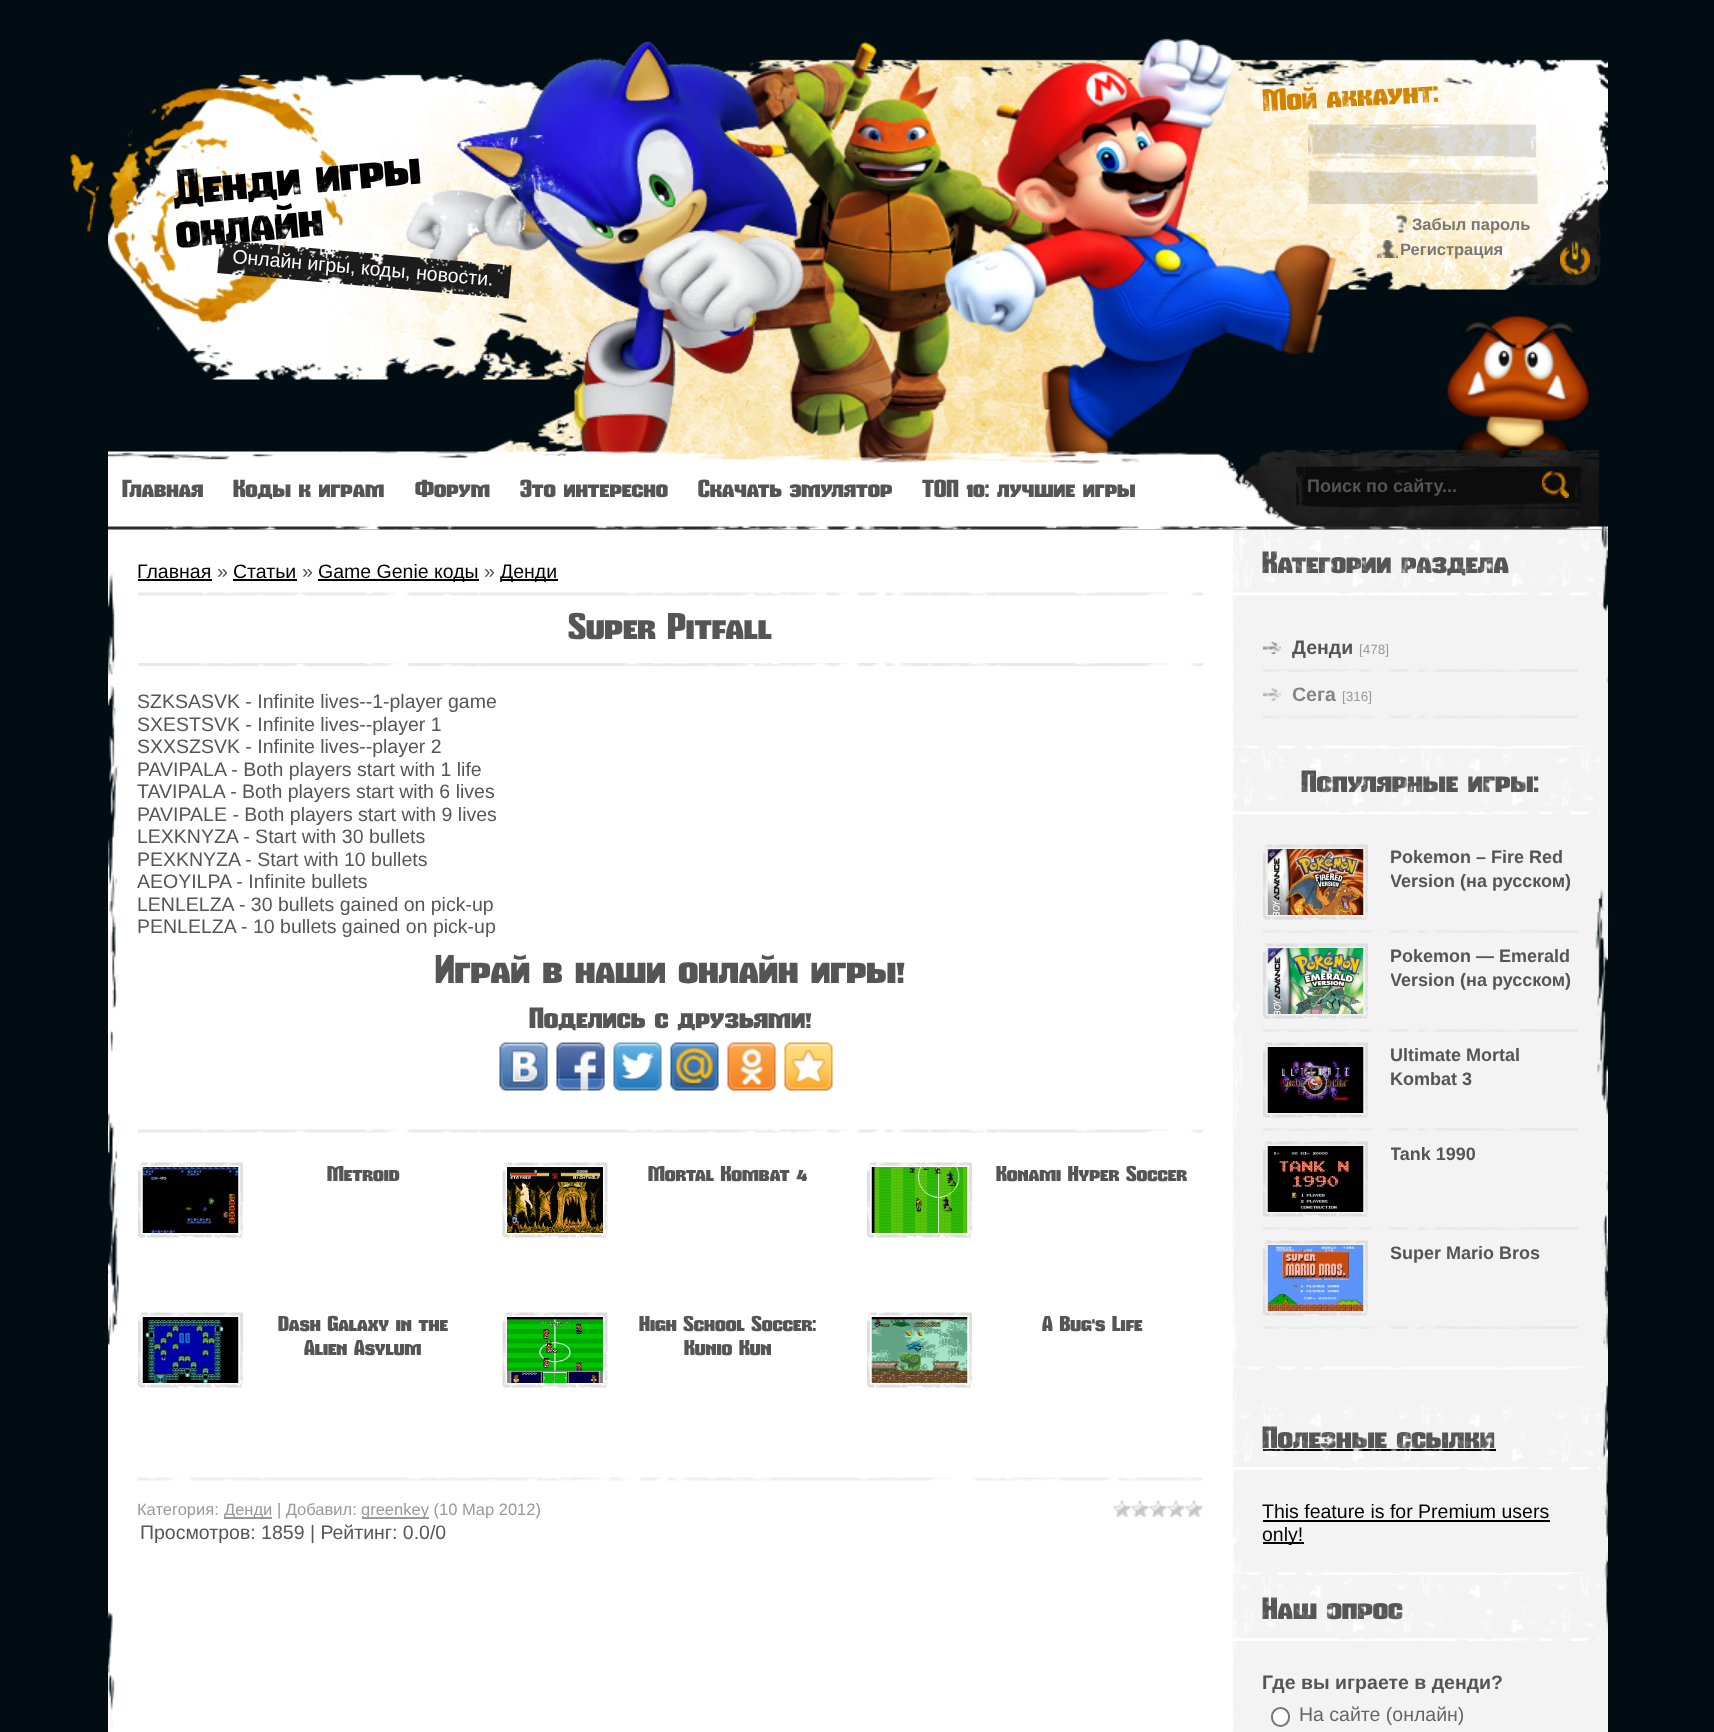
<!DOCTYPE html>
<meta charset="utf-8">
<style>body { margin: 0 } canvas { display: block }</style>
<canvas id="canvas" width="1714" height="1732"></canvas>
<img id="img1" src="img_01.png" hidden>
<img id="img2" src="img_02.png" hidden>
<img id="img3" src="img_04.png" hidden>
<img id="img4" src="img_05.png" hidden>
<img id="img5" src="img_06.png" hidden>
<img id="img6" src="img_07.png" hidden>
<img id="img7" src="img_08.png" hidden>
<img id="img8" src="img_09.png" hidden>
<img id="img9" src="img_12.png" hidden>
<img id="img10" src="img_13.png" hidden>
<img id="img11" src="img_14.png" hidden>
<img id="img12" src="img_15.png" hidden>
<img id="img13" src="img_16.png" hidden>
<img id="img14" src="img_17.png" hidden>
<img id="img15" src="img_18.png" hidden>
<img id="img16" src="img_19.png" hidden>
<img id="img17" src="img_20.png" hidden>
<img id="img18" src="img_21.png" hidden>
<img id="img19" src="img_22.png" hidden>
<img id="img20" src="img_23.png" hidden>
<img id="img21" src="img_24.png" hidden>
<img id="img22" src="img_25.png" hidden>
<img id="img23" src="img_26.png" hidden>
<img id="img24" src="img_27.png" hidden>
<img id="img25" src="img_28.png" hidden>
<img id="img26" src="img_29.png" hidden>
<img id="img27" src="img_30.png" hidden>
<img id="img28" src="img_31.png" hidden>
<img id="img29" src="img_32.png" hidden>
<img id="img30" src="img_33.png" hidden>
<img id="img31" src="img_34.png" hidden>
<img id="img32" src="img_36.png" hidden>
<img id="img33" src="img_37.png" hidden>
<img id="img34" src="img_38.png" hidden>
<img id="img35" src="img_39.png" hidden>
<img id="img36" src="img_40.png" hidden>
<img id="img37" src="img_41.png" hidden>
<img id="img38" src="img_43.png" hidden>
<img id="img39" src="img_44.png" hidden>
<img id="img40" src="img_45.png" hidden>
<img id="img41" src="img_46.png" hidden>
<img id="img42" src="img_47.png" hidden>
<img id="img43" src="img_48.png" hidden>
<img id="img44" src="img_49.png" hidden>
<img id="img45" src="img_50.png" hidden>
<img id="img46" src="img_03.png" hidden>
<img id="img47" src="img_10.png" hidden>
<img id="img48" src="img_11.png" hidden>
<img id="img49" src="img_35.png" hidden>
<img id="img50" src="img_42.png" hidden>
<img id="img51" src="img_51.png" hidden>
<img id="img52" src="img_52.png" hidden>
<script>
window.onload = function () {
	const canvas = document.getElementById("canvas");
	const ctx = canvas.getContext("2d");
	ctx.miterLimit = 4;
	ctx.fontKerning = "normal";
	function txt(s, x, y) {
		ctx.fillText(s, x, y);
	}
	function fill(x, y, w, h) {
		ctx.fillRect(x, y, w, h);
	}
	function img(id, x, y, w, h) {
		ctx.drawImage(document.getElementById(id), x, y, w, h);
	}

	ctx.fillStyle = "#010D12";
	fill(0, 0, 1714, 1732);
	img("img1", 108, 38, 1500, 426);
	img("img2", 70, 76, 277, 255);
	img("img3", 1308, 124, 229, 35);
	img("img4", 1308, 169, 230, 35);
	img("img5", 1396, 214, 13, 19);
	img("img6", 1377, 240, 21, 18);
	img("img7", 1495, 190, 112, 100);
	img("img8", 1560, 241, 30, 34);
	img("img9", 108, 450, 1500, 80);
	img("img10", 1542, 471, 27, 27);
	img("img11", 108, 529, 1500, 1203);
	ctx.fillStyle = "#000000";
	fill(138, 579, 74, 2);
	fill(233, 579, 64, 2);
	fill(318, 579, 161, 2);
	fill(501, 579, 57, 2);
	img("img12", 138, 592, 1065, 4);
	img("img13", 138, 663, 1065, 3);
	img("img14", 499, 1042, 49, 49);
	img("img15", 556, 1042, 49, 49);
	img("img16", 613, 1042, 49, 49);
	img("img17", 670, 1042, 49, 49);
	img("img18", 727, 1042, 49, 49);
	img("img19", 784, 1042, 49, 49);
	img("img12", 138, 1129, 1065, 4);
	img("img20", 138, 1162, 105, 76);
	img("img21", 142, 1167, 97, 66);
	img("img22", 502, 1162, 106, 76);
	img("img23", 507, 1167, 96, 66);
	img("img20", 867, 1162, 105, 76);
	img("img24", 871, 1167, 97, 66);
	img("img20", 138, 1312, 105, 76);
	img("img25", 142, 1317, 97, 66);
	img("img22", 502, 1312, 106, 76);
	img("img26", 507, 1317, 96, 66);
	img("img20", 867, 1312, 105, 76);
	img("img27", 871, 1317, 97, 66);
	img("img28", 138, 1477, 1065, 4);
	ctx.fillStyle = "#999999";
	fill(224, 1517, 48, 2);
	fill(362, 1517, 67, 2);
	img("img29", 1113, 1500, 90, 18);
	img("img30", 1233, 745, 354, 4);
	img("img31", 1233, 592, 368, 4);
	img("img32", 1263, 669, 315, 3);
	img("img33", 1263, 642, 18, 12);
	img("img34", 1263, 715, 315, 4);
	img("img35", 1263, 688, 18, 13);
	img("img36", 1233, 1366, 354, 4);
	img("img37", 1233, 811, 368, 4);
	img("img32", 1263, 930, 315, 3);
	img("img38", 1263, 844, 105, 76);
	img("img39", 1267, 849, 97, 66);
	img("img32", 1263, 1029, 315, 3);
	img("img38", 1263, 943, 105, 76);
	img("img40", 1267, 948, 97, 66);
	img("img32", 1263, 1128, 315, 3);
	img("img38", 1263, 1042, 105, 76);
	img("img41", 1267, 1047, 97, 66);
	img("img32", 1263, 1227, 315, 3);
	img("img38", 1263, 1141, 105, 76);
	img("img42", 1267, 1146, 97, 66);
	img("img32", 1263, 1326, 315, 3);
	img("img38", 1263, 1240, 105, 76);
	img("img43", 1267, 1245, 97, 66);
	img("img44", 1233, 1572, 375, 3);
	img("img45", 1233, 1467, 368, 3);
	ctx.fillStyle = "#000000";
	fill(1263, 1449, 233, 2);
	fill(1263, 1520, 287, 2);
	fill(1263, 1542, 41, 2);
	img("img45", 1233, 1638, 368, 3);
	ctx.fillStyle = "#FFFFFF";
	ctx.beginPath();
	ctx.roundRect(1272, 1708, 17, 18, 8.5);
	ctx.fill();
	ctx.strokeStyle = "#767676";
	ctx.lineWidth = 2;
	ctx.stroke();
	ctx.font = "900 30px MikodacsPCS";
	ctx.fillStyle = "#D28100";
	ctx.save();
	ctx.translate(1263, 111);
	ctx.rotate(-3 * Math.PI / 180);
	ctx.fillText("Мой аккаунт:", 0, 0);
	ctx.restore();
	img("img46", 1263, 85, 244, 37);
	ctx.font = "bold 16.5px Liberation Sans";
	ctx.fillStyle = "#7B7871";
	txt("Забыл пароль", 1412, 230);
	txt("Регистрация", 1400, 255);
	ctx.font = "900 48px MikodacsPCS";
	ctx.fillStyle = "#000000";
	ctx.save();
	ctx.translate(174, 205);
	ctx.rotate(-5 * Math.PI / 180);
	ctx.fillText("Денди игры", 0, 0);
	ctx.restore();
	ctx.save();
	ctx.translate(177, 248);
	ctx.rotate(-5 * Math.PI / 180);
	ctx.fillText("онлайн", 0, 0);
	ctx.restore();
	img("img47", 175, 134, 391, 149);
	img("img48", 217, 240, 295, 59);
	ctx.font = "19.5px Liberation Sans";
	ctx.fillStyle = "#FFFFFF";
	ctx.save();
	ctx.translate(232, 263);
	ctx.rotate(5 * Math.PI / 180);
	ctx.fillText("Онлайн игры, коды, новости.", 0, 0);
	ctx.restore();
	ctx.font = "900 24px MikodacsPCS";
	ctx.fillStyle = "#555555";
	txt("Главная", 122, 497);
	txt("Коды к играм", 233, 497);
	txt("Форум", 415, 497);
	txt("Это интересно", 520, 497);
	txt("Скачать эмулятор", 698, 497);
	txt("ТОП 10: лучшие игры", 922, 497);
	ctx.font = "bold 18px Liberation Sans";
	txt("Поиск по сайту...", 1307, 492);
	ctx.font = "19.5px Liberation Sans";
	ctx.fillStyle = "#000000";
	txt("Главная", 137, 578);
	ctx.fillStyle = "#555555";
	txt("»", 217, 578);
	ctx.fillStyle = "#000000";
	txt("Статьи", 233, 578);
	ctx.fillStyle = "#555555";
	txt("»", 302, 578);
	ctx.fillStyle = "#000000";
	txt("Game Genie коды", 318, 578);
	ctx.fillStyle = "#555555";
	txt("»", 484, 578);
	ctx.fillStyle = "#000000";
	txt("Денди", 500, 578);
	ctx.font = "900 36px MikodacsPCS";
	ctx.fillStyle = "#555555";
	txt("Super Pitfall", 568, 639);
	ctx.font = "19.5px Liberation Sans";
	txt("SZKSASVK - Infinite lives--1-player game", 137, 708);
	txt("SXESTSVK - Infinite lives--player 1", 137, 731);
	txt("SXXSZSVK - Infinite lives--player 2", 137, 753);
	txt("PAVIPALA - Both players start with 1 life", 137, 776);
	txt("TAVIPALA - Both players start with 6 lives", 137, 798);
	txt("PAVIPALE - Both players start with 9 lives", 137, 821);
	txt("LEXKNYZA - Start with 30 bullets", 137, 843);
	txt("PEXKNYZA - Start with 10 bullets", 137, 866);
	txt("AEOYILPA - Infinite bullets", 137, 888);
	txt("LENLELZA - 30 bullets gained on pick-up", 137, 911);
	txt("PENLELZA - 10 bullets gained on pick-up", 137, 933);
	ctx.font = "900 39px MikodacsPCS";
	txt("Играй в наши онлайн игры!", 435, 983);
	ctx.font = "900 28.5px MikodacsPCS";
	txt("Поделись с друзьями!", 529, 1028);
	ctx.font = "900 21px MikodacsPCS";
	txt("Metroid", 327, 1181);
	txt("Mortal Kombat 4", 648, 1181);
	txt("Konami Hyper Soccer", 996, 1181);
	txt("Dash Galaxy in the", 278, 1331);
	txt("Alien Asylum", 304, 1355);
	txt("High School Soccer:", 639, 1331);
	txt("Kunio Kun", 684, 1355);
	txt("A Bug's Life", 1042, 1331);
	ctx.font = "16.5px Liberation Sans";
	ctx.fillStyle = "#999999";
	txt("Категория:", 137, 1515);
	txt("Денди | Добавил:", 224, 1515);
	txt("greenkey (10 Мар 2012)", 361, 1515);
	ctx.font = "19.5px Liberation Sans";
	ctx.fillStyle = "#555555";
	txt("Просмотров: 1859 | Рейтинг: 0.0/0", 140, 1539);
	ctx.font = "900 30px MikodacsPCS";
	txt("Категории раздела", 1262, 573);
	img("img49", 1233, 529, 367, 59);
	ctx.font = "bold 19.5px Liberation Sans";
	txt("Денди", 1292, 654);
	ctx.font = "13.5px Liberation Sans";
	ctx.fillStyle = "#999999";
	txt("[478]", 1359, 654);
	ctx.font = "bold 19.5px Liberation Sans";
	ctx.fillStyle = "#848484";
	txt("Сега", 1292, 701);
	ctx.font = "13.5px Liberation Sans";
	ctx.fillStyle = "#999999";
	txt("[316]", 1342, 701);
	ctx.font = "900 30px MikodacsPCS";
	ctx.fillStyle = "#555555";
	txt("Популярные игры:", 1301, 792);
	img("img50", 1233, 749, 367, 58);
	ctx.font = "bold 18px Liberation Sans";
	txt("Pokemon – Fire Red", 1390, 863);
	ctx.save();
	ctx.beginPath();
	ctx.rect(1391, 845, 187, 48);
	ctx.clip();
	txt("Version (на русском)", 1390, 887);
	ctx.restore();
	txt("Pokemon — Emerald", 1390, 962);
	ctx.save();
	ctx.beginPath();
	ctx.rect(1391, 944, 187, 48);
	ctx.clip();
	txt("Version (на русском)", 1390, 986);
	ctx.restore();
	ctx.save();
	ctx.beginPath();
	ctx.rect(1391, 1043, 187, 48);
	ctx.clip();
	txt("Ultimate Mortal", 1390, 1061);
	ctx.restore();
	txt("Kombat 3", 1390, 1085);
	ctx.save();
	ctx.beginPath();
	ctx.rect(1391, 1142, 187, 24);
	ctx.clip();
	txt("Tank 1990", 1390, 1160);
	ctx.restore();
	ctx.save();
	ctx.beginPath();
	ctx.rect(1391, 1241, 187, 24);
	ctx.clip();
	txt("Super Mario Bros", 1390, 1259);
	ctx.restore();
	ctx.font = "900 30px MikodacsPCS";
	txt("Полезные ссылки", 1262, 1448);
	img("img51", 1233, 1404, 367, 58);
	ctx.font = "19.5px Liberation Sans";
	ctx.fillStyle = "#000000";
	txt("This feature is for Premium users", 1262, 1518);
	txt("only!", 1262, 1541);
	ctx.font = "900 30px MikodacsPCS";
	ctx.fillStyle = "#555555";
	txt("Наш опрос", 1262, 1619);
	img("img52", 1233, 1575, 367, 58);
	ctx.font = "bold 19.5px Liberation Sans";
	txt("Где вы играете в денди?", 1262, 1689);
	ctx.font = "19.5px Liberation Sans";
	ctx.fillStyle = "#666666";
	txt("На сайте (онлайн)", 1299, 1721);
};
</script>
